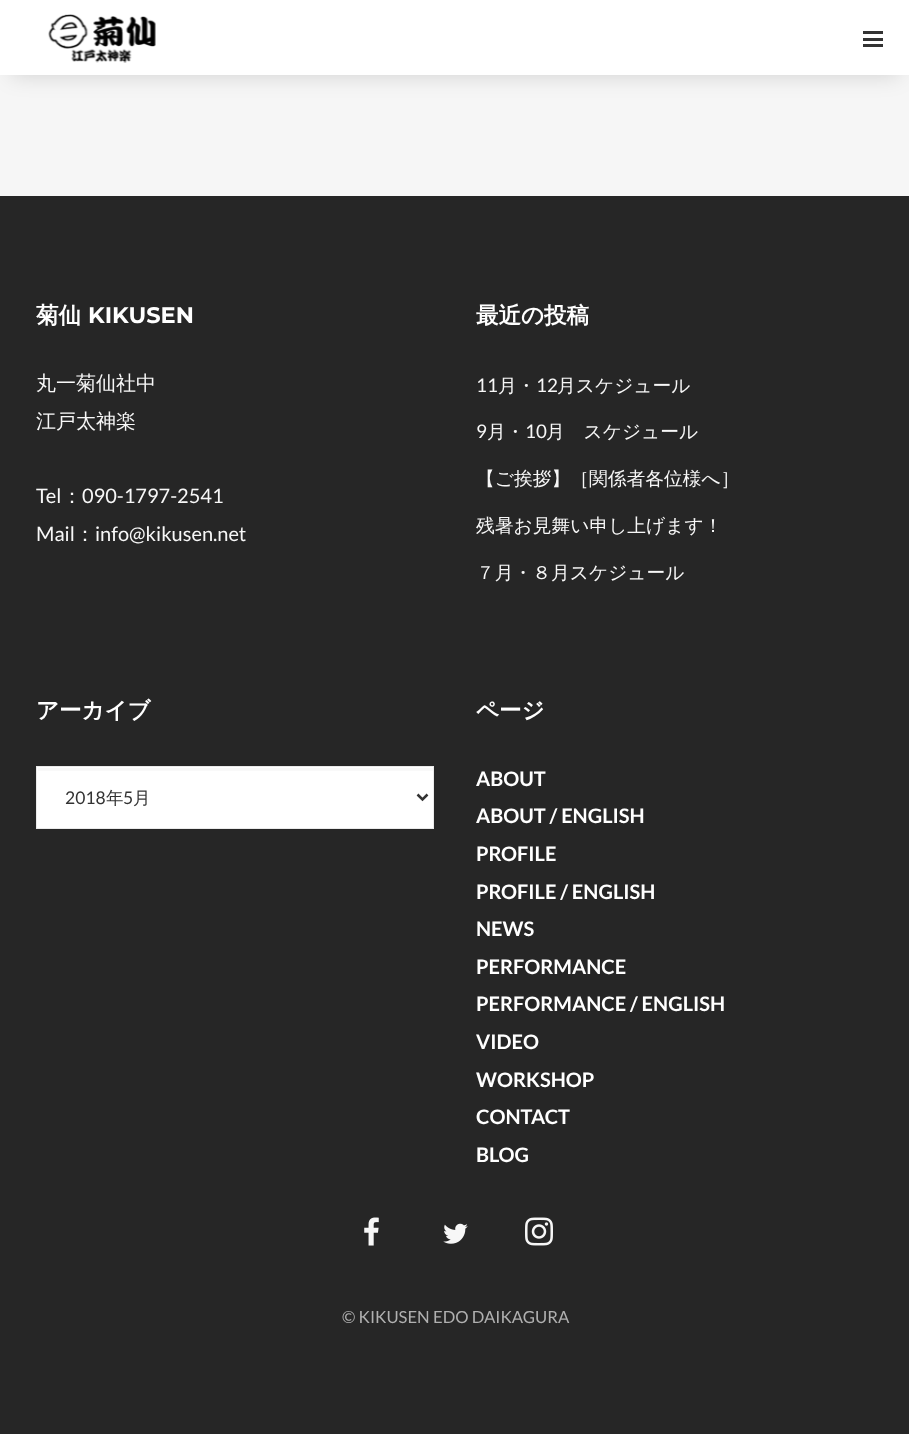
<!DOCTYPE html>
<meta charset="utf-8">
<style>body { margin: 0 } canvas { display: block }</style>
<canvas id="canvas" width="909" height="1434"></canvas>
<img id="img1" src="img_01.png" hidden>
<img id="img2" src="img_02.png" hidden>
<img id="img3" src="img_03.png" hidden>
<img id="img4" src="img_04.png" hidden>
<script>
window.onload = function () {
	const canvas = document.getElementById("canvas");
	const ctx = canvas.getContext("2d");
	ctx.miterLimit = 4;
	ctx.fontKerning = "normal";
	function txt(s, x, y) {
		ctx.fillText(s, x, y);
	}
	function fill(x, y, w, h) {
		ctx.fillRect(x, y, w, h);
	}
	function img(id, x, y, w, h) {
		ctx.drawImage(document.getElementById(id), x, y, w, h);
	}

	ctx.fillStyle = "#262626";
	fill(0, 0, 909, 1434);
	ctx.fillStyle = "#F6F6F6";
	fill(0, 75, 909, 121);
	ctx.fillStyle = "rgba(0, 0, 0, 0.14)";
	ctx.filter = "blur(10.5px)";
	ctx.beginPath();
	ctx.rect(11, 24, 888, 52);
	ctx.fill();
	ctx.filter = "none";
	ctx.fillStyle = "#FFFFFF";
	fill(0, 0, 909, 75);
	img("img1", 48, 14, 108, 49);
	ctx.fillStyle = "#333333";
	fill(863, 31, 20, 3);
	fill(863, 38, 20, 3);
	fill(863, 44, 20, 3);
	ctx.fillStyle = "#FFFFFF";
	fill(37, 767, 396, 61);
	ctx.fillStyle = "#F9F9F9";
	fill(38, 768, 395, 3);
	ctx.strokeStyle = "#EAEAEA";
	ctx.strokeRect(36.5, 766.5, 397, 62);
	ctx.beginPath();
	ctx.moveTo(417.5, 794.5);
	ctx.lineTo(422.5, 799.5);
	ctx.lineTo(427.5, 794.5);
	ctx.strokeStyle = "#333333";
	ctx.lineWidth = 2.5;
	ctx.stroke();
	img("img2", 364, 1217, 15, 29);
	img("img3", 443, 1223, 25, 21);
	img("img4", 525, 1217, 28, 29);
	ctx.font = "bold 22.5px WenQuanYi Zen Hei";
	ctx.fillStyle = "#FFFFFF";
	txt("菊仙", 36, 323);
	ctx.font = "bold 22.5px Montserrat";
	txt("KIKUSEN", 88, 323);
	ctx.font = "500 20px WenQuanYi Zen Hei";
	ctx.fillStyle = "#F7F7F7";
	txt("丸一菊仙社中", 36, 390);
	txt("江戸太神楽", 36, 428);
	ctx.font = "20px Lato";
	txt("Tel", 36, 503);
	ctx.font = "500 20px WenQuanYi Zen Hei";
	txt("：", 62, 503);
	ctx.font = "20px Lato";
	txt("090-1797-2541", 82, 503);
	txt("Mail", 36, 541);
	ctx.font = "500 20px WenQuanYi Zen Hei";
	txt("：", 75, 541);
	ctx.font = "20px Lato";
	txt("info@kikusen.net", 95, 541);
	ctx.font = "bold 22.5px WenQuanYi Zen Hei";
	ctx.fillStyle = "#FFFFFF";
	txt("最近の投稿", 476, 323);
	ctx.font = "18.75px Lato";
	ctx.fillStyle = "#F7F7F7";
	txt("11", 476, 392);
	ctx.font = "500 18.75px WenQuanYi Zen Hei";
	txt("月・", 498, 392);
	ctx.font = "18.75px Lato";
	txt("12", 536, 392);
	ctx.font = "500 18.75px WenQuanYi Zen Hei";
	txt("月スケジュール", 557, 392);
	ctx.font = "18.75px Lato";
	txt("9", 476, 438);
	ctx.font = "500 18.75px WenQuanYi Zen Hei";
	txt("月・", 487, 438);
	ctx.font = "18.75px Lato";
	txt("10", 525, 438);
	ctx.font = "500 18.75px WenQuanYi Zen Hei";
	txt("月　スケジュール", 546, 438);
	txt("【ご挨拶】［関係者各位様へ］", 476, 485);
	txt("残暑お見舞い申し上げます！", 476, 532);
	txt("７月・８月スケジュール", 476, 579);
	ctx.font = "bold 22.5px WenQuanYi Zen Hei";
	ctx.fillStyle = "#FFFFFF";
	txt("アーカイブ", 36, 718);
	ctx.font = "17.5px Lato";
	ctx.fillStyle = "#333333";
	txt("2018", 65, 804);
	ctx.font = "500 17.5px WenQuanYi Zen Hei";
	txt("年", 106, 804);
	ctx.font = "17.5px Lato";
	txt("5", 123, 804);
	ctx.font = "500 17.5px WenQuanYi Zen Hei";
	txt("月", 133, 804);
	ctx.font = "bold 22.5px WenQuanYi Zen Hei";
	ctx.fillStyle = "#FFFFFF";
	txt("ページ", 476, 718);
	ctx.font = "bold 20px Lato";
	txt("ABOUT", 476, 786);
	txt("ABOUT / ENGLISH", 476, 823);
	txt("PROFILE", 476, 861);
	txt("PROFILE / ENGLISH", 476, 899);
	txt("NEWS", 476, 936);
	txt("PERFORMANCE", 476, 974);
	txt("PERFORMANCE / ENGLISH", 476, 1011);
	txt("VIDEO", 476, 1049);
	txt("WORKSHOP", 476, 1087);
	txt("CONTACT", 476, 1124);
	txt("BLOG", 476, 1162);
	ctx.font = "16.7px Lato";
	ctx.fillStyle = "#B0B0B0";
	txt("© KIKUSEN EDO DAIKAGURA", 342, 1323);
};
</script>
